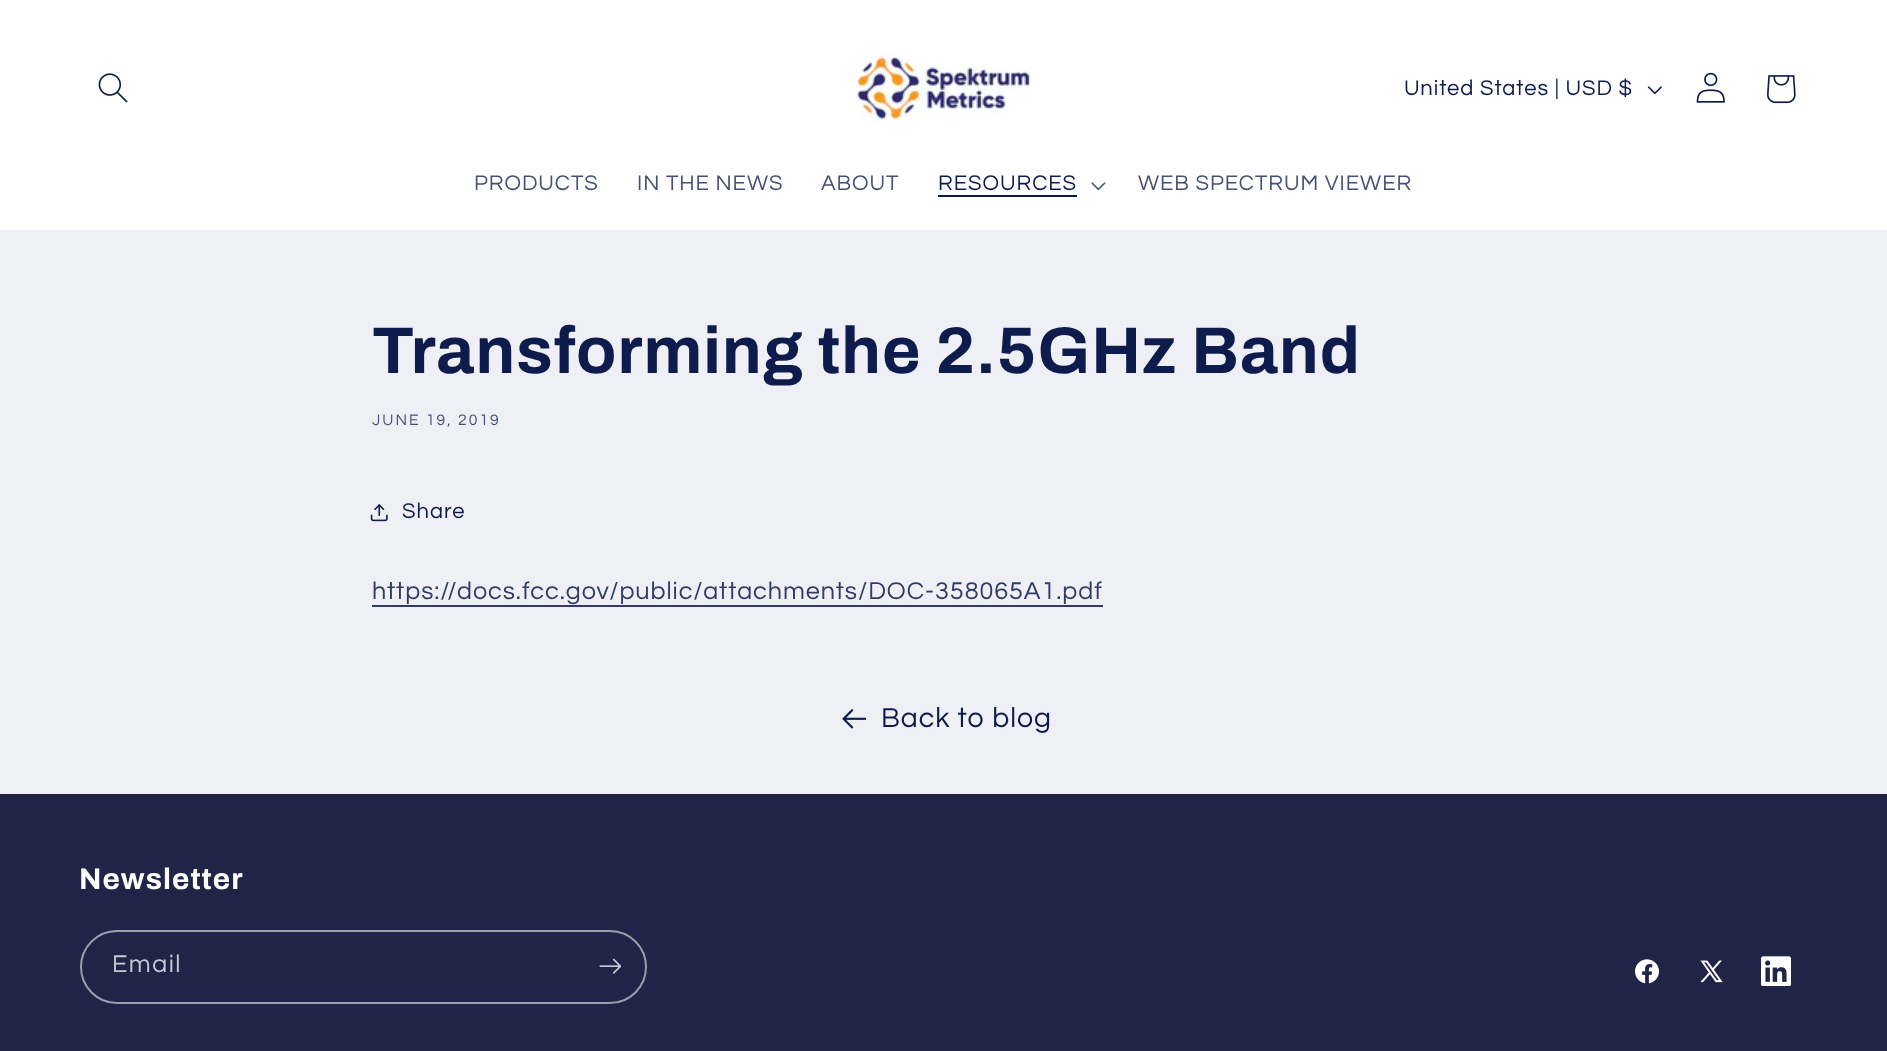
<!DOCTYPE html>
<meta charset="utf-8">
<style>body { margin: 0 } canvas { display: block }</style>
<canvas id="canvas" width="1887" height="1051"></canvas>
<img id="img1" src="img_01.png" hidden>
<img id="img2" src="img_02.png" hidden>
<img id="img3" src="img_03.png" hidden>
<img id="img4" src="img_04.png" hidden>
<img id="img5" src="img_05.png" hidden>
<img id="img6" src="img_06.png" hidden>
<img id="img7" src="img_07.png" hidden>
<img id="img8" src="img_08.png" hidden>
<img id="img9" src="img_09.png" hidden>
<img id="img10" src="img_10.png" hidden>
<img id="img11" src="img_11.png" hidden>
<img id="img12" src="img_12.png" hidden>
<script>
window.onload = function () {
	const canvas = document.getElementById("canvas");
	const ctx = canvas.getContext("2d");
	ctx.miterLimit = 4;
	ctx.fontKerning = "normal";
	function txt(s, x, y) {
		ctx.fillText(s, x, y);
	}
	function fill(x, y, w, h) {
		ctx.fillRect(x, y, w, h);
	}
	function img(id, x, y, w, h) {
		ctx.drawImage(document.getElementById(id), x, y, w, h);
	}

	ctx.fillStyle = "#EFF0F5";
	fill(0, 0, 1887, 1051);
	ctx.fillStyle = "#FFFFFF";
	fill(0, 0, 1887, 230);
	img("img1", 98, 73, 30, 30);
	img("img2", 854, 54, 177, 69);
	img("img3", 1647, 86, 15, 9);
	img("img4", 1696, 72, 29, 31);
	img("img5", 1767, 75, 29, 29);
	ctx.fillStyle = "#0E1B4D";
	fill(938, 195, 139, 2);
	img("img6", 1091, 182, 15, 9);
	img("img7", 370, 504, 18, 18);
	ctx.fillStyle = "#303B66";
	fill(372, 605, 731, 2);
	img("img8", 842, 709, 24, 20);
	ctx.fillStyle = "#202447";
	fill(0, 794, 1887, 257);
	ctx.beginPath();
	ctx.roundRect(81, 931, 565, 72, 36);
	ctx.strokeStyle = "#9B9CAC";
	ctx.lineWidth = 2;
	ctx.stroke();
	img("img9", 599, 958, 22, 16);
	img("img10", 1635, 959, 24, 25);
	img("img11", 1700, 960, 23, 23);
	img("img12", 1761, 956, 30, 30);
	ctx.letterSpacing = "0.95px";
	ctx.font = "22px Questrial";
	ctx.fillStyle = "#0E1B4D";
	txt("United States | USD $", 1404, 95);
	ctx.fillStyle = "#465077";
	txt("PRODUCTS", 474, 190);
	txt("IN THE NEWS", 637, 190);
	txt("ABOUT", 821, 190);
	ctx.fillStyle = "#0E1B4D";
	txt("RESOURCES", 938, 190);
	ctx.fillStyle = "#465077";
	txt("WEB SPECTRUM VIEWER", 1138, 190);
	ctx.letterSpacing = "1px";
	ctx.font = "bold 66px Archivo";
	ctx.fillStyle = "#0E1B4D";
	txt("Transforming the 2.5GHz Band", 372, 373);
	ctx.letterSpacing = "2px";
	ctx.font = "15.75px Questrial";
	ctx.fillStyle = "#465077";
	txt("JUNE 19, 2019", 372, 425);
	ctx.letterSpacing = "0.95px";
	ctx.font = "22px Questrial";
	ctx.fillStyle = "#0E1B4D";
	txt("Share", 402, 518);
	ctx.font = "25.2px Questrial";
	ctx.fillStyle = "#303B66";
	txt("https://docs.fcc.gov/public/attachments/DOC-358065A1.pdf", 372, 599);
	ctx.font = "28.5px Questrial";
	ctx.fillStyle = "#0E1B4D";
	txt("Back to blog", 881, 727);
	ctx.letterSpacing = "1px";
	ctx.font = "bold 29.75px Archivo";
	ctx.fillStyle = "#FFFFFF";
	txt("Newsletter", 79, 889);
	ctx.letterSpacing = "1.5px";
	ctx.font = "25.2px Questrial";
	ctx.fillStyle = "#C7C8D1";
	txt("Email", 112, 972);
};
</script>
